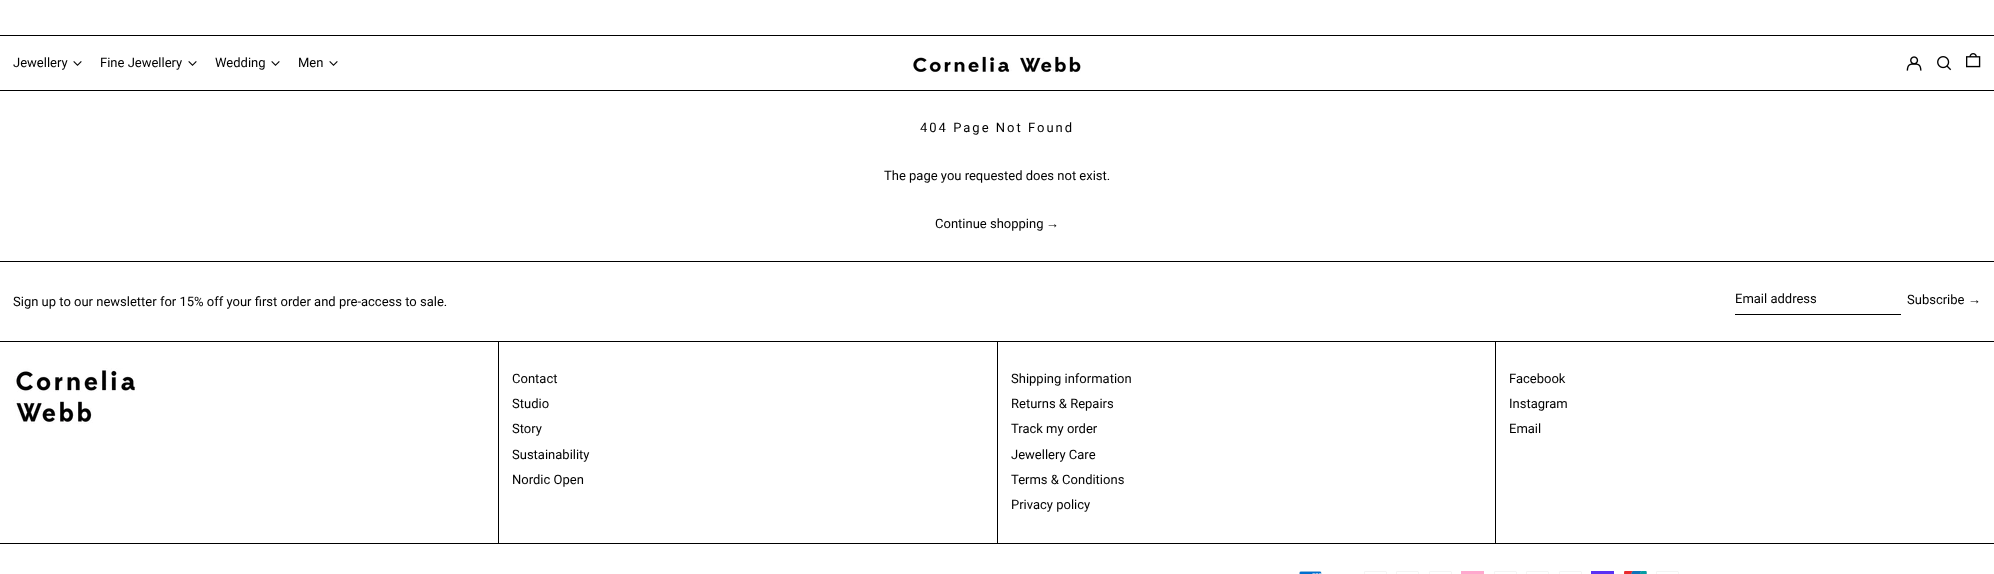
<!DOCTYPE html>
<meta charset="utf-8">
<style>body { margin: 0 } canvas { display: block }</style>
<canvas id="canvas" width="1994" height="574"></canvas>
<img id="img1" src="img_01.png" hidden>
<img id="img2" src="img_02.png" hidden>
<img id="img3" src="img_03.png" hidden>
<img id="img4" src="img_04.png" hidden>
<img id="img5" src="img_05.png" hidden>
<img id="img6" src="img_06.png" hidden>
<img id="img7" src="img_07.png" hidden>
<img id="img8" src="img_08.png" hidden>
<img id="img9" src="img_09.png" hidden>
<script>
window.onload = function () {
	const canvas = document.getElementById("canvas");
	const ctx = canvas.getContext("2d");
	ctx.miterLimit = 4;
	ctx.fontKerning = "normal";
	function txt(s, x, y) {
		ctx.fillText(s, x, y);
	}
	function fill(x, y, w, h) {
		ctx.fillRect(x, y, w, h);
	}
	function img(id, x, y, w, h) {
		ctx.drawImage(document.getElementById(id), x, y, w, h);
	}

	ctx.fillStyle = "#FFFFFF";
	fill(0, 0, 1994, 574);
	ctx.fillStyle = "#000000";
	fill(0, 35, 1994, 1);
	fill(0, 90, 1994, 1);
	img("img1", 73, 61, 9, 5);
	img("img1", 188, 61, 9, 5);
	img("img1", 271, 61, 9, 5);
	img("img1", 329, 61, 9, 5);
	img("img2", 912, 55, 169, 18);
	img("img3", 1906, 56, 16, 15);
	img("img4", 1937, 56, 15, 15);
	img("img5", 1966, 53, 15, 15);
	fill(0, 261, 1994, 1);
	fill(1735, 314, 166, 1);
	fill(0, 341, 1994, 1);
	fill(498, 342, 998, 201);
	img("img6", 13, 368, 124, 56);
	ctx.fillStyle = "#FFFFFF";
	fill(499, 342, 498, 201);
	fill(998, 342, 497, 201);
	ctx.fillStyle = "#000000";
	fill(0, 543, 1994, 1);
	img("img7", 1299, 571, 23, 3);
	img("img8", 1364, 571, 23, 3);
	img("img8", 1396, 571, 23, 3);
	img("img8", 1429, 571, 23, 3);
	ctx.fillStyle = "#FFA8CD";
	fill(1461, 571, 23, 3);
	img("img8", 1494, 571, 23, 3);
	img("img8", 1526, 571, 23, 3);
	img("img8", 1559, 571, 23, 3);
	ctx.fillStyle = "#5A31F4";
	fill(1591, 571, 23, 3);
	img("img9", 1624, 571, 23, 3);
	img("img8", 1656, 571, 23, 3);
	ctx.font = "13px Roboto";
	ctx.fillStyle = "#000000";
	txt("Jewellery", 13, 67);
	txt("Fine Jewellery", 100, 67);
	txt("Wedding", 215, 67);
	txt("Men", 298, 67);
	ctx.letterSpacing = "2px";
	txt("404 Page Not Found", 920, 132);
	ctx.letterSpacing = "0px";
	txt("The page you requested does not exist.", 884, 180);
	txt("Continue shopping", 935, 228);
	ctx.font = "13px Liberation Sans";
	txt("→", 1046, 228);
	ctx.font = "13px Roboto";
	txt("Sign up to our newsletter for 15% off your first order and pre-access to sale.", 13, 306);
	txt("Email address", 1735, 303);
	txt("Subscribe", 1907, 304);
	ctx.font = "13px Liberation Sans";
	txt("→", 1968, 304);
	ctx.font = "13px Roboto";
	txt("Contact", 512, 383);
	txt("Studio", 512, 408);
	txt("Story", 512, 433);
	txt("Sustainability", 512, 459);
	txt("Nordic Open", 512, 484);
	txt("Shipping information", 1011, 383);
	txt("Returns & Repairs", 1011, 408);
	txt("Track my order", 1011, 433);
	txt("Jewellery Care", 1011, 459);
	txt("Terms & Conditions", 1011, 484);
	txt("Privacy policy", 1011, 509);
	txt("Facebook", 1509, 383);
	txt("Instagram", 1509, 408);
	txt("Email", 1509, 433);
};
</script>
